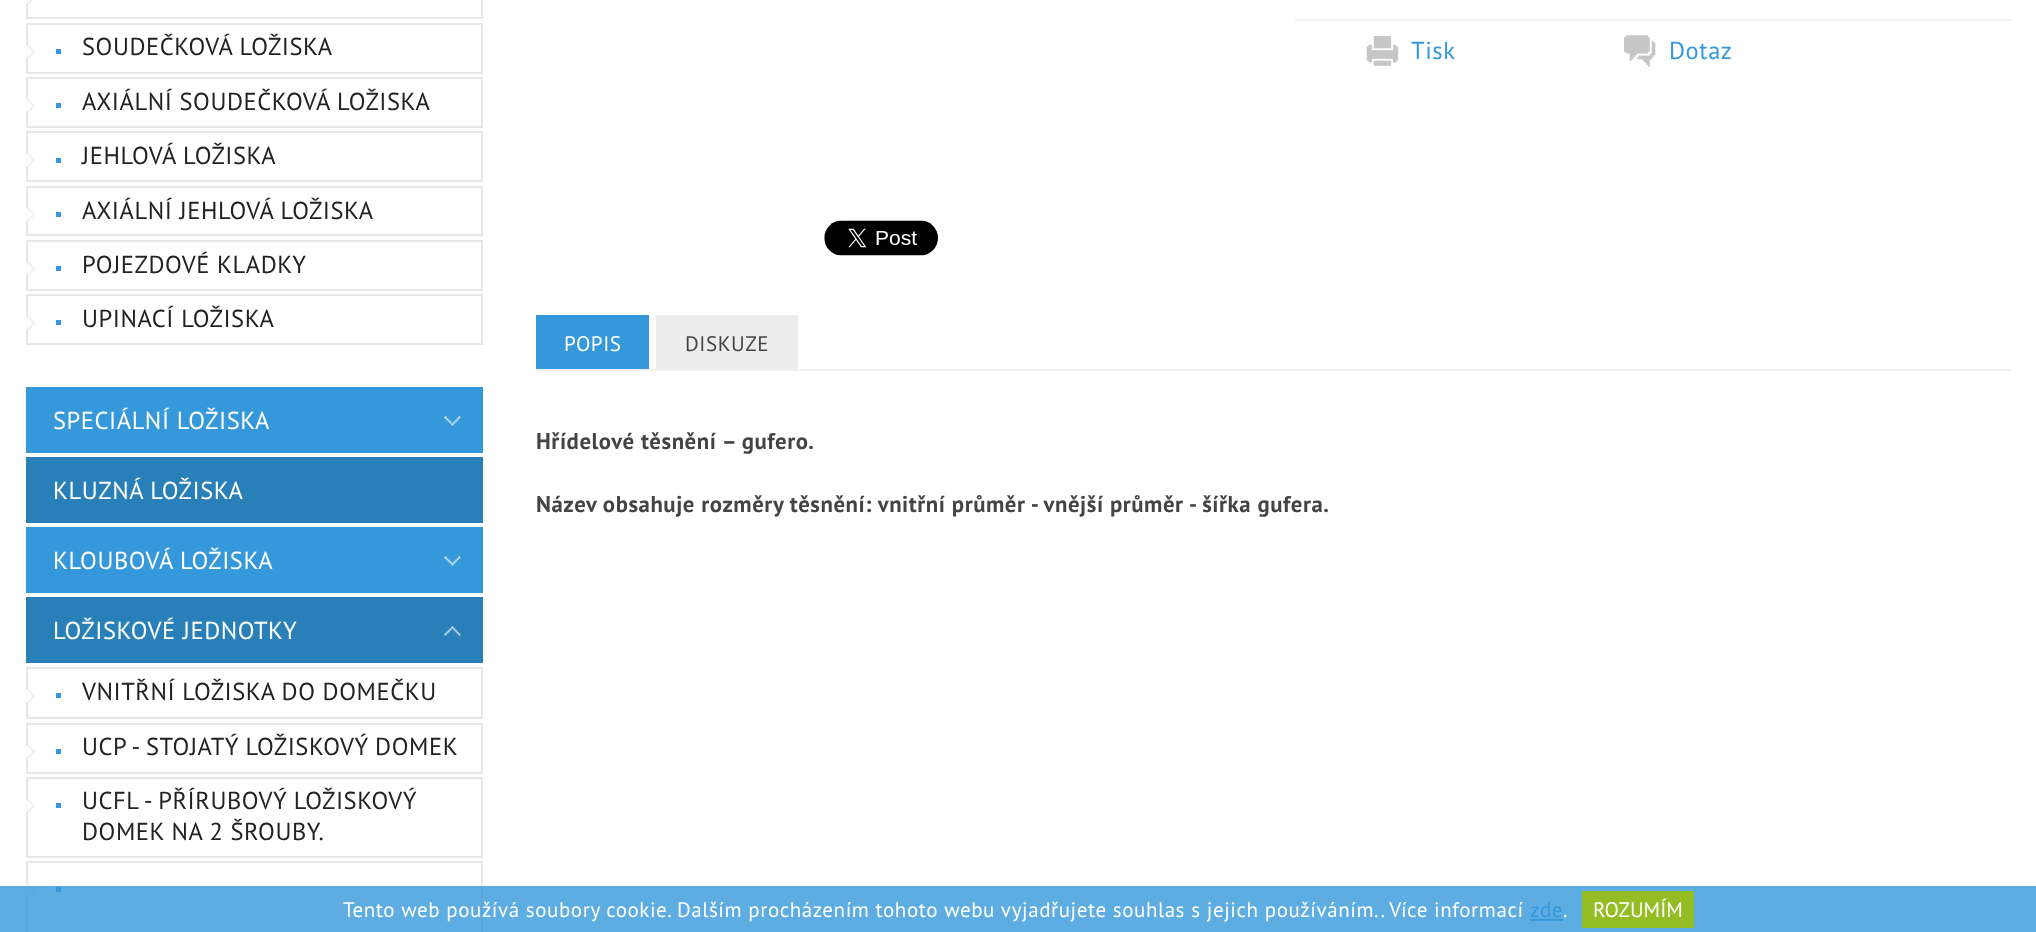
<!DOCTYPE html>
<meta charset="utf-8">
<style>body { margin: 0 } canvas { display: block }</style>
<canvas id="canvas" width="2036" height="932"></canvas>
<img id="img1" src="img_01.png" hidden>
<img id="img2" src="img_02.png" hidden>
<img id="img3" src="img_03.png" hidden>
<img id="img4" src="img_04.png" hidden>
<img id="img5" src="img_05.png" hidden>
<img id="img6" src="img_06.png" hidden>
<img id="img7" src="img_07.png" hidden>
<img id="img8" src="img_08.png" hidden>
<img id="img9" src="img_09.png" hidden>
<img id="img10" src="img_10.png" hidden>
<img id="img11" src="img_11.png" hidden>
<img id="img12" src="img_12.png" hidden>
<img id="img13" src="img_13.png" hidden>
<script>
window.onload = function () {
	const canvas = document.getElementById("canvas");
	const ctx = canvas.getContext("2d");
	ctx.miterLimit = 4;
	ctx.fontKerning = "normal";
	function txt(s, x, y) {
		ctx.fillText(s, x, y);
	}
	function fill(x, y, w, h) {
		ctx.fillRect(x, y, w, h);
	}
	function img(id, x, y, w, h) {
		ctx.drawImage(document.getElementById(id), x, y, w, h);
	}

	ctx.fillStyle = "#FFFFFF";
	fill(0, 0, 2036, 932);
	ctx.strokeStyle = "#E7E7E7";
	ctx.lineWidth = 2;
	ctx.strokeRect(27, -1, 455, 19);
	img("img1", 26, 0, 6, 5);
	ctx.strokeRect(27, 24, 455, 49);
	img("img2", 26, 44, 10, 15);
	ctx.fillStyle = "#3498DB";
	fill(56, 49, 5, 5);
	ctx.strokeRect(27, 78, 455, 49);
	img("img3", 26, 98, 10, 15);
	fill(56, 103, 5, 5);
	ctx.strokeRect(27, 132, 455, 49);
	img("img4", 26, 152, 10, 16);
	fill(56, 158, 5, 5);
	ctx.strokeRect(27, 187, 455, 48);
	img("img5", 26, 207, 10, 15);
	fill(56, 212, 5, 5);
	ctx.strokeRect(27, 241, 455, 49);
	img("img2", 26, 261, 10, 15);
	fill(56, 266, 5, 5);
	ctx.strokeRect(27, 295, 455, 49);
	img("img3", 26, 315, 10, 15);
	fill(56, 320, 5, 5);
	fill(26, 387, 457, 66);
	img("img6", 444, 416, 17, 10);
	ctx.fillStyle = "#2980B9";
	fill(26, 457, 457, 66);
	ctx.fillStyle = "#3498DB";
	fill(26, 527, 457, 66);
	img("img6", 444, 556, 17, 10);
	ctx.fillStyle = "#2980B9";
	fill(26, 597, 457, 66);
	img("img7", 444, 626, 17, 10);
	ctx.strokeRect(27, 668, 455, 50);
	img("img8", 26, 688, 10, 16);
	ctx.fillStyle = "#3498DB";
	fill(56, 693, 5, 5);
	ctx.strokeRect(27, 724, 455, 49);
	img("img2", 26, 744, 10, 15);
	fill(56, 749, 5, 5);
	ctx.strokeRect(27, 778, 455, 79);
	img("img9", 26, 798, 10, 15);
	fill(56, 803, 5, 5);
	ctx.strokeRect(27, 862, 455, 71);
	img("img10", 26, 882, 10, 16);
	fill(56, 887, 5, 5);
	ctx.fillStyle = "#F2F2F2";
	fill(1295, 19, 718, 2);
	img("img11", 1366, 36, 33, 30);
	img("img12", 1624, 35, 32, 32);
	img("img13", 824, 220, 114, 36);
	fill(536, 369, 1475, 2);
	ctx.fillStyle = "#3498DB";
	fill(536, 315, 113, 54);
	ctx.fillStyle = "#EDEDED";
	fill(656, 315, 142, 54);
	ctx.fillStyle = "rgba(52, 152, 219, 0.8)";
	fill(0, 886, 2036, 46);
	ctx.fillStyle = "#3498DB";
	fill(1530, 919, 33, 2);
	ctx.fillStyle = "#94BD23";
	fill(1582, 891, 112, 37);
	ctx.letterSpacing = "0.56px";
	ctx.font = "24.5px PT Sans";
	ctx.fillStyle = "#222222";
	txt("SOUDEČKOVÁ LOŽISKA", 82, 55);
	txt("AXIÁLNÍ SOUDEČKOVÁ LOŽISKA", 82, 110);
	txt("JEHLOVÁ LOŽISKA", 82, 164);
	txt("AXIÁLNÍ JEHLOVÁ LOŽISKA", 82, 219);
	txt("POJEZDOVÉ KLADKY", 82, 273);
	txt("UPINACÍ LOŽISKA", 82, 327);
	ctx.fillStyle = "#FFFFFF";
	txt("SPECIÁLNÍ LOŽISKA", 53, 429);
	txt("KLUZNÁ LOŽISKA", 53, 499);
	txt("KLOUBOVÁ LOŽISKA", 53, 569);
	txt("LOŽISKOVÉ JEDNOTKY", 53, 639);
	ctx.fillStyle = "#222222";
	txt("VNITŘNÍ LOŽISKA DO DOMEČKU", 82, 700);
	txt("UCP - STOJATÝ LOŽISKOVÝ DOMEK", 82, 755);
	txt("UCFL - PŘÍRUBOVÝ LOŽISKOVÝ", 82, 809);
	txt("DOMEK NA 2 ŠROUBY.", 82, 840);
	ctx.fillStyle = "#3498DB";
	txt("Tisk", 1411, 59);
	txt("Dotaz", 1669, 59);
	ctx.font = "21px PT Sans";
	ctx.fillStyle = "#FFFFFF";
	txt("POPIS", 564, 351);
	ctx.fillStyle = "#444444";
	txt("DISKUZE", 685, 351);
	ctx.font = "bold 22.75px PT Sans";
	txt("Hřídelové těsnění – gufero.", 536, 449);
	txt("Název obsahuje rozměry těsnění: vnitřní průměr - vnější průměr - šířka gufera.", 536, 512);
	ctx.font = "21px PT Sans";
	ctx.fillStyle = "#FFFFFF";
	txt("Tento web používá soubory cookie. Dalším procházením tohoto webu vyjadřujete souhlas s jejich používáním.. Více informací", 343, 917);
	ctx.fillStyle = "#3498DB";
	txt("zde", 1530, 917);
	ctx.fillStyle = "#FFFFFF";
	txt(".", 1563, 917);
	ctx.letterSpacing = "0px";
	txt("ROZUMÍM", 1593, 917);
};
</script>
